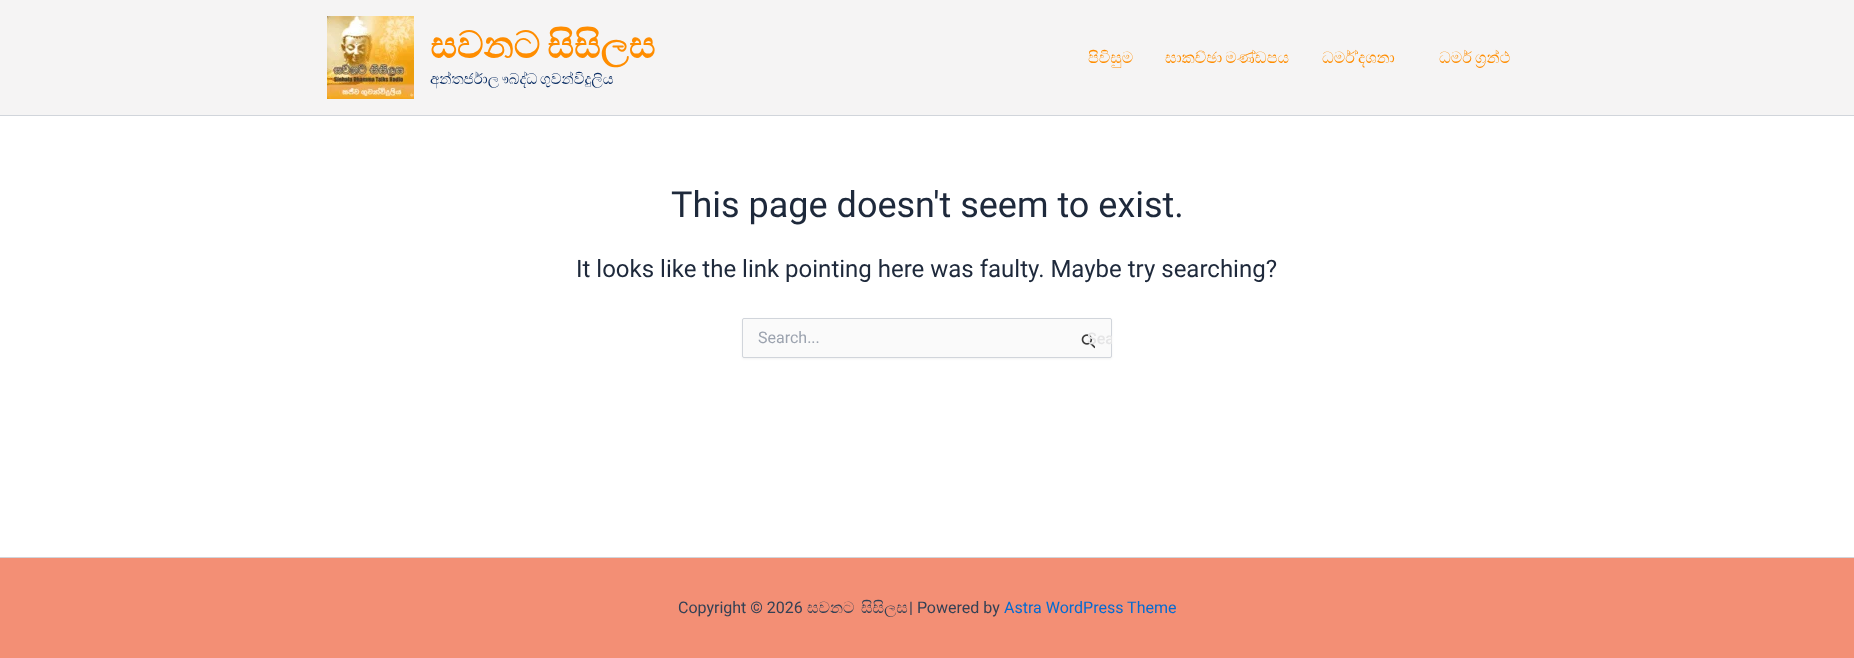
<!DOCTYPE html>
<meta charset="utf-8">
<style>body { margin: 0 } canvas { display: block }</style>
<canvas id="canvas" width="1854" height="658"></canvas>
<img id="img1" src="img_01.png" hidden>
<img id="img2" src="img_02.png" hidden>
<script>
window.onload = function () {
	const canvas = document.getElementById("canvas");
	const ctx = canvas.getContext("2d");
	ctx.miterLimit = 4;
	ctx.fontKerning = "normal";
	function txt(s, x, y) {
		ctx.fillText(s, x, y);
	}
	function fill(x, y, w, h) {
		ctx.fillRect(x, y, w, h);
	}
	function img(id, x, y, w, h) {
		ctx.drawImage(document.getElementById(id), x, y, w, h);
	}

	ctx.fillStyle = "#FFFFFF";
	fill(0, 0, 1854, 658);
	ctx.fillStyle = "#F5F4F4";
	fill(0, 0, 1854, 115);
	ctx.fillStyle = "#D1D5DB";
	fill(0, 115, 1854, 1);
	img("img1", 327, 16, 87, 83);
	ctx.fillStyle = "rgba(0, 0, 0, 0.05)";
	ctx.filter = "blur(1px)";
	ctx.beginPath();
	ctx.roundRect(742, 319, 370, 40, 2);
	ctx.fill();
	ctx.filter = "none";
	ctx.fillStyle = "#FAFAFA";
	ctx.beginPath();
	ctx.roundRect(742.5, 318.5, 369, 39, 1.5);
	ctx.fill();
	ctx.strokeStyle = "#D1D5DB";
	ctx.stroke();
	img("img2", 1081, 334, 14, 15);
	ctx.fillStyle = "#F38F75";
	fill(0, 558, 1854, 100);
	ctx.fillStyle = "#D1D5DB";
	fill(0, 557, 1854, 1);
	ctx.wordSpacing = "-2px";
	ctx.font = "bold 37px FreeSerif";
	ctx.fillStyle = "#FF8D00";
	txt("සවනට සිසිලස", 430, 58);
	ctx.wordSpacing = "-1px";
	ctx.font = "15px FreeSerif";
	ctx.fillStyle = "#0A2D63";
	txt("අන්තර්ජාල බෞද්ධ ගුවන්විදුලිය", 430, 84);
	ctx.wordSpacing = "0px";
	ctx.font = "16px FreeSerif";
	ctx.fillStyle = "#FF8D00";
	txt("පිවිසුම", 1088, 63);
	ctx.wordSpacing = "-1px";
	txt("සාකච්ඡා මණ්ඩපය", 1165, 63);
	txt("ධර්ම දේශනා", 1322, 63);
	txt("ධර්ම ග්‍රන්ථ", 1439, 63);
	ctx.wordSpacing = "0px";
	ctx.font = "36px Roboto";
	ctx.fillStyle = "#1E293B";
	txt("This page doesn't seem to exist.", 671, 217);
	ctx.font = "24px Roboto";
	txt("It looks like the link pointing here was faulty. Maybe try searching?", 576, 277);
	ctx.font = "16px Roboto";
	ctx.fillStyle = "#9CA3AF";
	txt("Search...", 758, 343);
	ctx.save();
	ctx.beginPath();
	ctx.roundRect(1067, 318, 45, 42, 2);
	ctx.clip();
	ctx.font = "500 16px Roboto";
	ctx.fillStyle = "#E5E5E6";
	txt("Sea", 1087, 344);
	ctx.restore();
	ctx.fillStyle = "#334155";
	txt("Copyright © 2026", 678, 613);
	ctx.font = "16px FreeSerif";
	txt("සවනට", 807, 613);
	txt("සිසිලස", 861, 613);
	ctx.font = "16px Roboto";
	txt("| Powered by", 909, 613);
	ctx.fillStyle = "#046BD2";
	txt("Astra WordPress Theme", 1004, 613);
};
</script>
